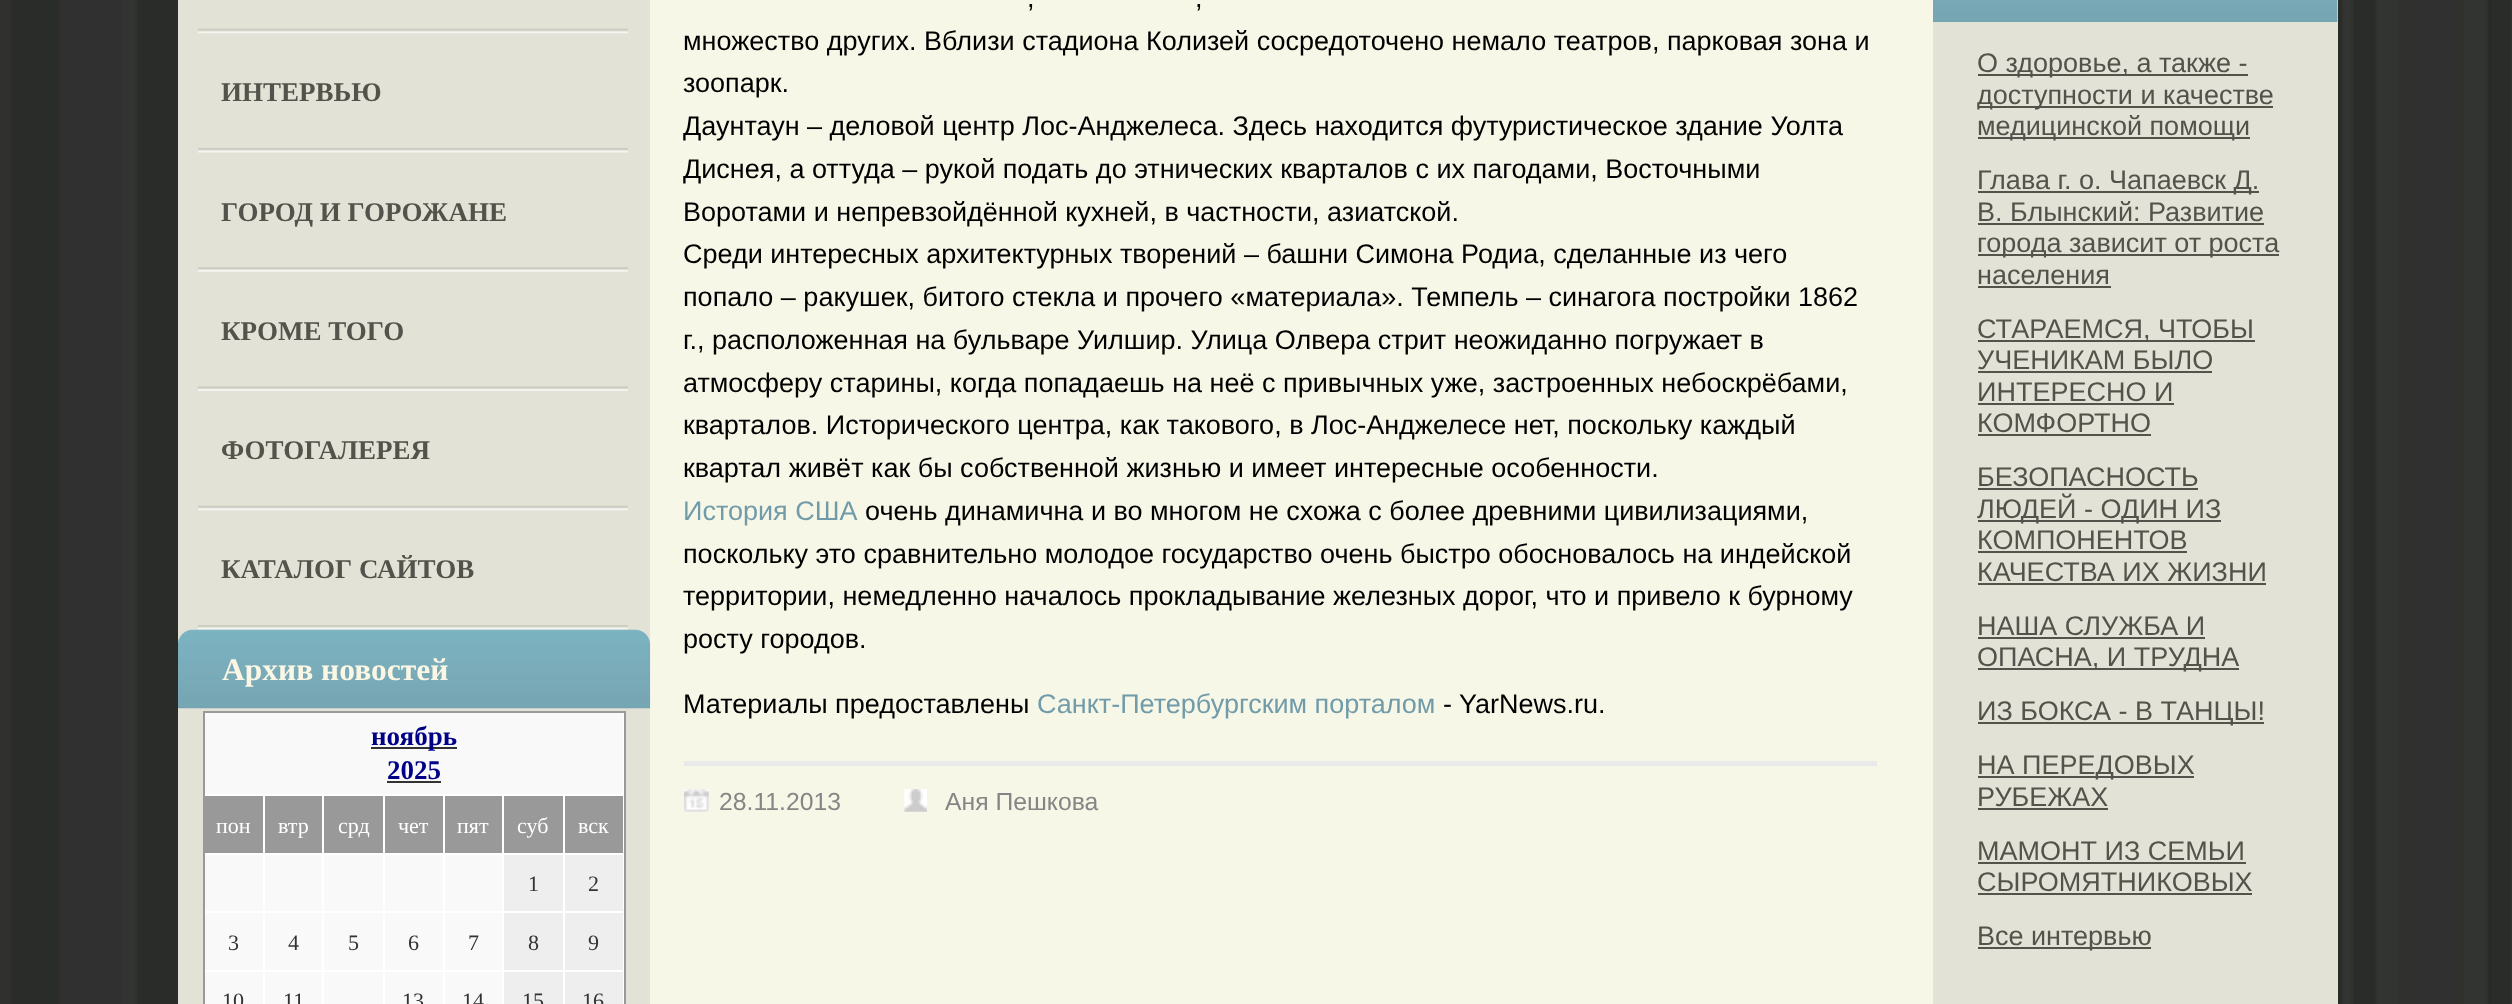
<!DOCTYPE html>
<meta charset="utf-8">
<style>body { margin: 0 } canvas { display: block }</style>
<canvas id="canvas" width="2512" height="1004"></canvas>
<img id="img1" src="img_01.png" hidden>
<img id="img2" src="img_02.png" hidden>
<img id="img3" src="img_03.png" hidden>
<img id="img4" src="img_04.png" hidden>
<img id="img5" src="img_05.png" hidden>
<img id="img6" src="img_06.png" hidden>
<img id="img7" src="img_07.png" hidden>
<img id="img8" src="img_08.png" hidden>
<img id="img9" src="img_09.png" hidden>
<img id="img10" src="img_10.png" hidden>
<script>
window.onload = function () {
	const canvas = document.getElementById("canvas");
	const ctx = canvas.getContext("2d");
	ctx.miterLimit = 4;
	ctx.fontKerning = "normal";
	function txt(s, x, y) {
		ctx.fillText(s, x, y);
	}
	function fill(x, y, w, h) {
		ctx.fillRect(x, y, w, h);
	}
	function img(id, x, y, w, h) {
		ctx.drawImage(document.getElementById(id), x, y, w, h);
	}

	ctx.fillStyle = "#FFFFFF";
	fill(0, 0, 2512, 1004);
	img("img1", 0, 0, 2512, 1004);
	ctx.fillStyle = "#F7F7E7";
	fill(650, 0, 1283, 1004);
	ctx.fillStyle = "#E2E2D6";
	fill(178, 0, 472, 1004);
	img("img2", 198, 28, 430, 6);
	img("img3", 198, 148, 430, 5);
	img("img4", 198, 267, 430, 5);
	img("img5", 198, 386, 430, 5);
	img("img2", 198, 505, 430, 6);
	img("img6", 198, 625, 430, 5);
	img("img7", 178, 629, 473, 80);
	ctx.fillStyle = "#FFFFFF";
	fill(623, 713, 1, 291);
	ctx.strokeStyle = "#999999";
	ctx.lineWidth = 2;
	ctx.strokeRect(204, 712, 421, 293);
	ctx.fillStyle = "#F9F9F9";
	fill(205, 713, 418, 81);
	ctx.fillStyle = "#333333";
	fill(371, 747, 86, 2);
	fill(387, 781, 54, 2);
	ctx.fillStyle = "#999999";
	fill(205, 796, 117, 57);
	ctx.fillStyle = "#FFFFFF";
	fill(205, 794, 418, 2);
	fill(263, 794, 2, 59);
	fill(322, 794, 2, 59);
	ctx.fillStyle = "#999999";
	fill(324, 796, 59, 57);
	ctx.fillStyle = "#FFFFFF";
	fill(383, 794, 2, 59);
	ctx.fillStyle = "#999999";
	fill(385, 796, 117, 57);
	ctx.fillStyle = "#FFFFFF";
	fill(443, 794, 2, 59);
	fill(502, 794, 2, 59);
	ctx.fillStyle = "#999999";
	fill(504, 796, 59, 57);
	ctx.fillStyle = "#FFFFFF";
	fill(563, 794, 2, 59);
	ctx.fillStyle = "#999999";
	fill(565, 796, 58, 57);
	ctx.fillStyle = "#F9F9F9";
	fill(205, 855, 117, 56);
	ctx.fillStyle = "#FFFFFF";
	fill(205, 853, 418, 2);
	fill(263, 853, 2, 58);
	fill(322, 853, 2, 58);
	ctx.fillStyle = "#F9F9F9";
	fill(324, 855, 59, 56);
	ctx.fillStyle = "#FFFFFF";
	fill(383, 853, 2, 58);
	ctx.fillStyle = "#F9F9F9";
	fill(385, 855, 117, 56);
	ctx.fillStyle = "#FFFFFF";
	fill(443, 853, 2, 58);
	fill(502, 853, 2, 58);
	ctx.fillStyle = "#EEEEEE";
	fill(504, 855, 59, 56);
	ctx.fillStyle = "#FFFFFF";
	fill(563, 853, 2, 58);
	ctx.fillStyle = "#EEEEEE";
	fill(565, 855, 58, 56);
	ctx.fillStyle = "#F9F9F9";
	fill(205, 913, 117, 57);
	ctx.fillStyle = "#FFFFFF";
	fill(205, 911, 418, 2);
	fill(263, 911, 2, 59);
	fill(322, 911, 2, 59);
	ctx.fillStyle = "#F9F9F9";
	fill(324, 913, 59, 57);
	ctx.fillStyle = "#FFFFFF";
	fill(383, 911, 2, 59);
	ctx.fillStyle = "#F9F9F9";
	fill(385, 913, 117, 57);
	ctx.fillStyle = "#FFFFFF";
	fill(443, 911, 2, 59);
	fill(502, 911, 2, 59);
	ctx.fillStyle = "#EEEEEE";
	fill(504, 913, 59, 57);
	ctx.fillStyle = "#FFFFFF";
	fill(563, 911, 2, 59);
	ctx.fillStyle = "#EEEEEE";
	fill(565, 913, 58, 57);
	ctx.fillStyle = "#F9F9F9";
	fill(205, 972, 117, 32);
	ctx.fillStyle = "#FFFFFF";
	fill(205, 970, 418, 2);
	fill(263, 970, 2, 34);
	fill(322, 970, 2, 34);
	ctx.fillStyle = "#F9F9F9";
	fill(324, 972, 59, 32);
	ctx.fillStyle = "#FFFFFF";
	fill(383, 970, 2, 34);
	ctx.fillStyle = "#F9F9F9";
	fill(385, 972, 117, 32);
	ctx.fillStyle = "#FFFFFF";
	fill(443, 970, 2, 34);
	fill(502, 970, 2, 34);
	ctx.fillStyle = "#EEEEEE";
	fill(504, 972, 59, 32);
	ctx.fillStyle = "#FFFFFF";
	fill(563, 970, 2, 34);
	ctx.fillStyle = "#EEEEEE";
	fill(565, 972, 58, 32);
	ctx.fillStyle = "#E9E9E9";
	fill(684, 761, 1193, 5);
	img("img8", 684, 789, 25, 23);
	img("img9", 904, 789, 23, 23);
	ctx.fillStyle = "#E2E2D6";
	fill(1933, 0, 405, 1004);
	img("img10", 1933, 0, 405, 22);
	ctx.fillStyle = "#53534C";
	fill(1978, 74, 270, 2);
	fill(1978, 106, 295, 2);
	fill(1978, 137, 272, 2);
	fill(1978, 191, 281, 2);
	fill(1978, 223, 286, 2);
	fill(1978, 254, 301, 2);
	fill(1978, 286, 133, 2);
	fill(1978, 340, 277, 2);
	fill(1978, 371, 234, 2);
	fill(1978, 403, 196, 2);
	fill(1978, 434, 173, 2);
	fill(1978, 488, 220, 2);
	fill(1978, 520, 243, 2);
	fill(1978, 551, 209, 2);
	fill(1978, 583, 288, 2);
	fill(1978, 637, 227, 2);
	fill(1978, 668, 261, 2);
	fill(1978, 722, 286, 2);
	fill(1978, 776, 216, 2);
	fill(1978, 808, 130, 2);
	fill(1978, 862, 268, 2);
	fill(1978, 893, 274, 2);
	fill(1978, 947, 173, 2);
	ctx.font = "bold 27px Liberation Serif";
	txt("ИНТЕРВЬЮ", 221, 101);
	txt("ГОРОД И ГОРОЖАНЕ", 221, 221);
	txt("КРОМЕ ТОГО", 221, 340);
	txt("ФОТОГАЛЕРЕЯ", 221, 459);
	txt("КАТАЛОГ САЙТОВ", 221, 578);
	ctx.font = "bold 31.5px Liberation Serif";
	ctx.fillStyle = "#FBF7E4";
	txt("Архив новостей", 222, 680);
	ctx.font = "bold 27px Liberation Serif";
	ctx.fillStyle = "#000088";
	txt("ноябрь", 371, 745);
	txt("2025", 387, 779);
	ctx.font = "22px Liberation Serif";
	ctx.fillStyle = "#FFFFFF";
	txt("пон", 216, 833);
	txt("втр", 278, 833);
	txt("срд", 338, 833);
	txt("чет", 398, 833);
	txt("пят", 457, 833);
	txt("суб", 517, 833);
	txt("вск", 578, 833);
	ctx.fillStyle = "#333333";
	txt("1", 528, 891);
	txt("2", 588, 891);
	txt("3", 228, 950);
	txt("4", 288, 950);
	txt("5", 348, 950);
	txt("6", 408, 950);
	txt("7", 468, 950);
	txt("8", 528, 950);
	txt("9", 588, 950);
	txt("10", 222, 1008);
	txt("11", 283, 1008);
	txt("13", 402, 1008);
	txt("14", 462, 1008);
	txt("15", 522, 1008);
	txt("16", 582, 1008);
	ctx.font = "27px Liberation Sans";
	ctx.fillStyle = "#000000";
	txt(",", 1027, 7);
	txt(",", 1195, 7);
	txt("множество других. Вблизи стадиона Колизей сосредоточено немало театров, парковая зона и", 683, 50);
	txt("зоопарк.", 683, 92);
	txt("Даунтаун – деловой центр Лос-Анджелеса. Здесь находится футуристическое здание Уолта", 683, 135);
	txt("Диснея, а оттуда – рукой подать до этнических кварталов с их пагодами, Восточными", 683, 178);
	txt("Воротами и непревзойдённой кухней, в частности, азиатской.", 683, 221);
	txt("Среди интересных архитектурных творений – башни Симона Родиа, сделанные из чего", 683, 263);
	txt("попало – ракушек, битого стекла и прочего «материала». Темпель – синагога постройки 1862", 683, 306);
	txt("г., расположенная на бульваре Уилшир. Улица Олвера стрит неожиданно погружает в", 683, 349);
	txt("атмосферу старины, когда попадаешь на неё с привычных уже, застроенных небоскрёбами,", 683, 392);
	txt("кварталов. Исторического центра, как такового, в Лос-Анджелесе нет, поскольку каждый", 683, 434);
	txt("квартал живёт как бы собственной жизнью и имеет интересные особенности.", 683, 477);
	ctx.fillStyle = "#719BA9";
	txt("История США", 683, 520);
	ctx.fillStyle = "#000000";
	txt("очень динамична и во многом не схожа с более древними цивилизациями,", 865, 520);
	txt("поскольку это сравнительно молодое государство очень быстро обосновалось на индейской", 683, 563);
	txt("территории, немедленно началось прокладывание железных дорог, что и привело к бурному", 683, 605);
	txt("росту городов.", 683, 648);
	txt("Материалы предоставлены", 683, 713);
	ctx.fillStyle = "#719BA9";
	txt("Санкт-Петербургским порталом", 1037, 713);
	ctx.fillStyle = "#000000";
	txt("- YarNews.ru.", 1443, 713);
	ctx.font = "24.75px Liberation Sans";
	ctx.fillStyle = "#858585";
	txt("28.11.2013", 719, 810);
	txt("Аня Пешкова", 945, 810);
	ctx.font = "27px Liberation Sans";
	ctx.fillStyle = "#53534C";
	txt("О здоровье, а также -", 1977, 72);
	txt("доступности и качестве", 1977, 104);
	txt("медицинской помощи", 1977, 135);
	txt("Глава г. о. Чапаевск Д.", 1977, 189);
	txt("В. Блынский: Развитие", 1977, 221);
	txt("города зависит от роста", 1977, 252);
	txt("населения", 1977, 284);
	txt("СТАРАЕМСЯ, ЧТОБЫ", 1977, 338);
	txt("УЧЕНИКАМ БЫЛО", 1977, 369);
	txt("ИНТЕРЕСНО И", 1977, 401);
	txt("КОМФОРТНО", 1977, 432);
	txt("БЕЗОПАСНОСТЬ", 1977, 486);
	txt("ЛЮДЕЙ - ОДИН ИЗ", 1977, 518);
	txt("КОМПОНЕНТОВ", 1977, 549);
	txt("КАЧЕСТВА ИХ ЖИЗНИ", 1977, 581);
	txt("НАША СЛУЖБА И", 1977, 635);
	txt("ОПАСНА, И ТРУДНА", 1977, 666);
	txt("ИЗ БОКСА - В ТАНЦЫ!", 1977, 720);
	txt("НА ПЕРЕДОВЫХ", 1977, 774);
	txt("РУБЕЖАХ", 1977, 806);
	txt("МАМОНТ ИЗ СЕМЬИ", 1977, 860);
	txt("СЫРОМЯТНИКОВЫХ", 1977, 891);
	txt("Все интервью", 1977, 945);
};
</script>
